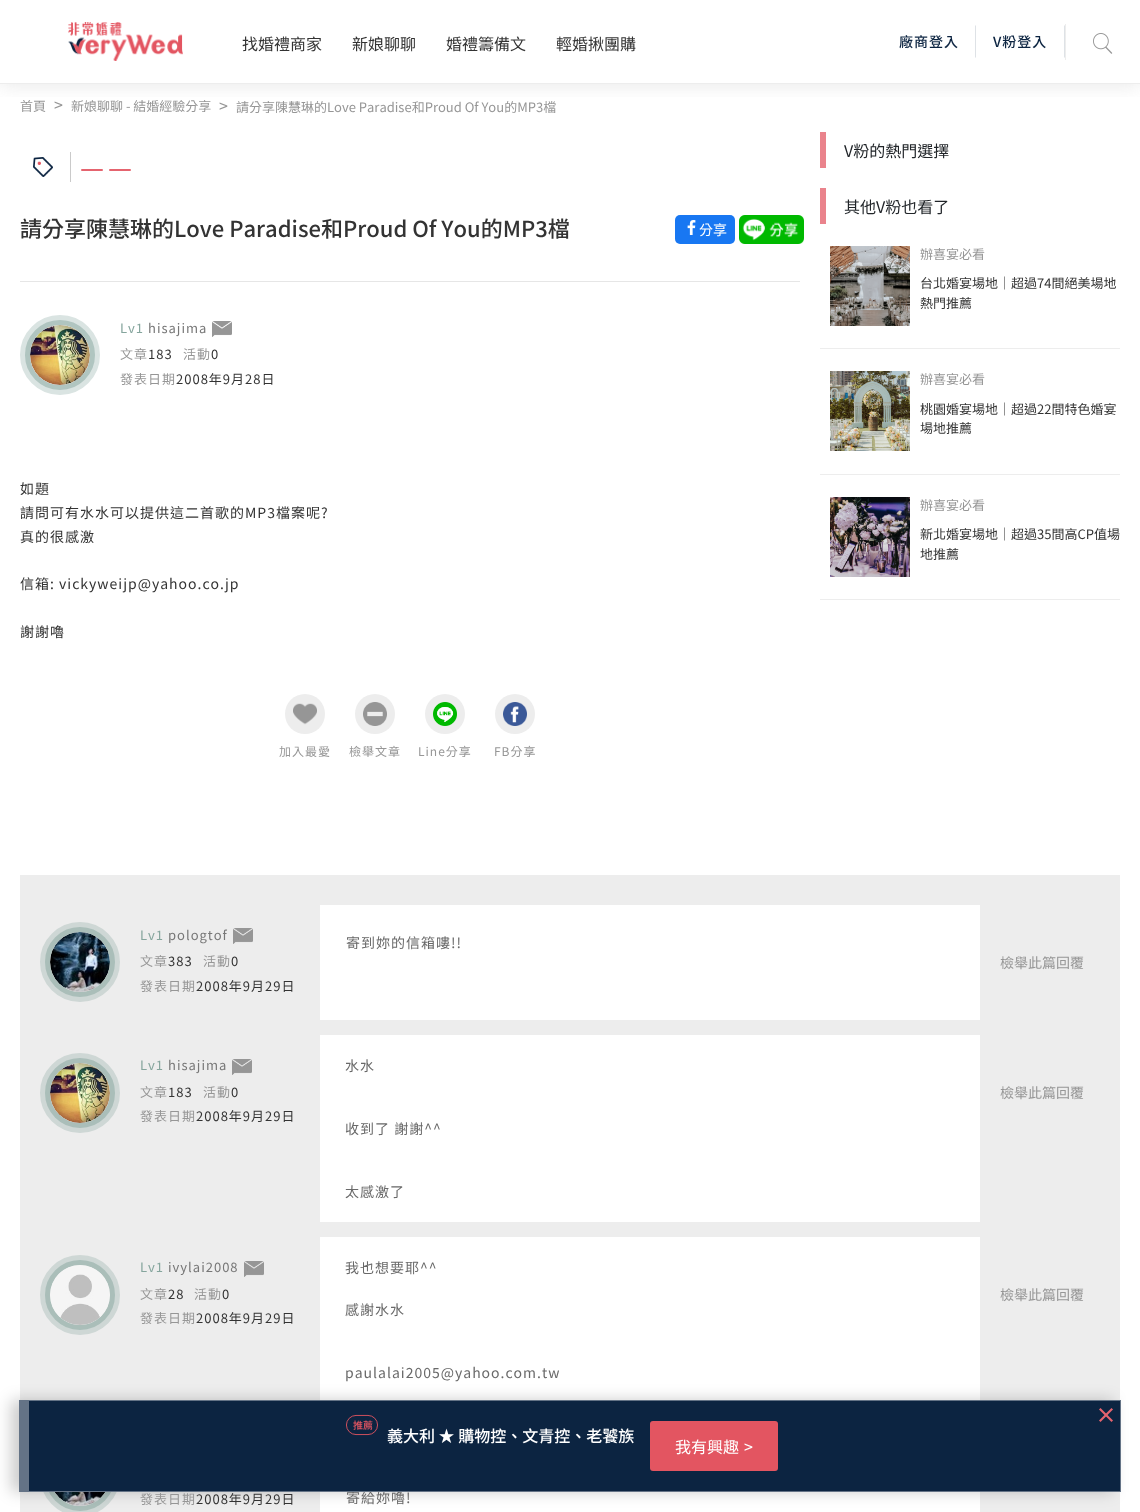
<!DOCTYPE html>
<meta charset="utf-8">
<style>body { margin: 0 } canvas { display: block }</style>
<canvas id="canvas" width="1140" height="1512"></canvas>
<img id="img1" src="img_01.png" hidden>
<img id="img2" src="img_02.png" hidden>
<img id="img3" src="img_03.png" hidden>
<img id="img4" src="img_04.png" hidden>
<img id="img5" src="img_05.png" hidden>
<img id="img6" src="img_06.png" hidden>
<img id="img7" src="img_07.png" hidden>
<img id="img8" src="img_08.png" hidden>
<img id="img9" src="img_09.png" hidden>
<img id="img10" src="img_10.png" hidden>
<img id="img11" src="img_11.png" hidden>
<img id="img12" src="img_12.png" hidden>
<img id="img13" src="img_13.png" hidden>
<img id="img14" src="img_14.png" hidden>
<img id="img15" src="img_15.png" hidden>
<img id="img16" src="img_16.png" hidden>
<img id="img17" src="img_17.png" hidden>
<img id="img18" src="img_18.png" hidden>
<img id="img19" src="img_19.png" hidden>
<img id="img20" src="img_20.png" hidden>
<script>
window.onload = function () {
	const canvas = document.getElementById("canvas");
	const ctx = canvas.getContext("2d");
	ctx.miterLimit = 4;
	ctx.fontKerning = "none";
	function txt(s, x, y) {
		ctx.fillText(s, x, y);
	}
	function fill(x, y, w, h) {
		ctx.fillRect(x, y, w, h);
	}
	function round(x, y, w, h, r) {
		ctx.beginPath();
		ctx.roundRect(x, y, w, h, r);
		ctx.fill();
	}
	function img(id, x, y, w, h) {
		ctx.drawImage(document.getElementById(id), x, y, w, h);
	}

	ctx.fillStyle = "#FFFFFF";
	fill(0, 0, 1140, 1512);
	ctx.save();
	ctx.beginPath();
	ctx.rect(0, 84, 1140, 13);
	ctx.clip();
	ctx.fillStyle = "rgba(125, 125, 125, 0.2)";
	ctx.filter = "blur(10px)";
	ctx.beginPath();
	ctx.rect(0, 0, 1140, 84);
	ctx.fill();
	ctx.filter = "none";
	ctx.restore();
	ctx.fillStyle = "#EDEDED";
	fill(0, 83, 1140, 1);
	img("img1", 68, 22, 115, 39);
	ctx.fillStyle = "#DEE2E6";
	ctx.beginPath();
	ctx.moveTo(976, 25);
	ctx.lineTo(976, 58);
	ctx.lineTo(975, 57);
	ctx.lineTo(975, 26);
	ctx.closePath();
	ctx.fill();
	ctx.beginPath();
	ctx.moveTo(1065, 25);
	ctx.lineTo(1065, 58);
	ctx.lineTo(1064, 57);
	ctx.lineTo(1064, 26);
	ctx.closePath();
	ctx.fill();
	ctx.fillStyle = "#EDEDED";
	fill(1065, 24, 1, 36);
	img("img2", 1093, 33, 20, 21);
	img("img3", 33, 157, 20, 20);
	ctx.fillStyle = "#CACACA";
	fill(70, 152, 1, 30);
	ctx.fillStyle = "#E5646F";
	round(81, 169, 22, 2, 1);
	round(109, 169, 22, 2, 1);
	ctx.fillStyle = "#1877F2";
	round(675, 215, 60, 29, 5);
	img("img4", 687, 220, 9, 15);
	img("img5", 739, 215, 65, 29);
	ctx.fillStyle = "#E6E6E6";
	fill(20, 281, 780, 1);
	ctx.beginPath();
	ctx.arc(60, 355, 35, 0, Math.PI * 2);
	ctx.strokeStyle = "#DAE4E2";
	ctx.lineWidth = 10;
	ctx.stroke();
	ctx.beginPath();
	ctx.arc(60, 355, 32.5, 0, Math.PI * 2);
	ctx.strokeStyle = "rgba(133, 165, 157, 0.5)";
	ctx.lineWidth = 5;
	ctx.stroke();
	img("img6", 30, 325, 60, 60);
	img("img7", 212, 321, 20, 16);
	ctx.fillStyle = "#EDEDED";
	ctx.beginPath();
	ctx.arc(305, 714, 20, 0, Math.PI * 2);
	ctx.fill();
	img("img8", 293, 703, 24, 22);
	ctx.beginPath();
	ctx.arc(375, 714, 20, 0, Math.PI * 2);
	ctx.fill();
	img("img9", 363, 702, 24, 24);
	ctx.beginPath();
	ctx.arc(445, 714, 20, 0, Math.PI * 2);
	ctx.fill();
	img("img10", 433, 702, 24, 24);
	ctx.beginPath();
	ctx.arc(515, 714, 20, 0, Math.PI * 2);
	ctx.fill();
	img("img11", 503, 702, 24, 24);
	ctx.fillStyle = "#EA838C";
	fill(820, 132, 6, 36);
	fill(820, 188, 6, 36);
	ctx.fillStyle = "#EDEDED";
	fill(820, 348, 300, 1);
	img("img12", 830, 246, 80, 80);
	fill(820, 474, 300, 1);
	img("img13", 830, 371, 80, 80);
	fill(820, 599, 300, 1);
	img("img14", 830, 497, 80, 80);
	fill(20, 875, 1100, 637);
	ctx.beginPath();
	ctx.arc(80, 962, 35, 0, Math.PI * 2);
	ctx.strokeStyle = "#CED7D5";
	ctx.lineWidth = 10;
	ctx.stroke();
	ctx.beginPath();
	ctx.arc(80, 962, 32.5, 0, Math.PI * 2);
	ctx.strokeStyle = "rgba(133, 165, 157, 0.5)";
	ctx.lineWidth = 5;
	ctx.stroke();
	img("img15", 50, 932, 60, 60);
	img("img16", 233, 928, 20, 16);
	ctx.fillStyle = "#FFFFFF";
	fill(320, 905, 660, 115);
	ctx.beginPath();
	ctx.arc(80, 1093, 35, 0, Math.PI * 2);
	ctx.strokeStyle = "#CED7D5";
	ctx.lineWidth = 10;
	ctx.stroke();
	ctx.beginPath();
	ctx.arc(80, 1093, 32.5, 0, Math.PI * 2);
	ctx.strokeStyle = "rgba(133, 165, 157, 0.5)";
	ctx.lineWidth = 5;
	ctx.stroke();
	img("img17", 50, 1063, 60, 60);
	img("img16", 232, 1059, 20, 16);
	fill(320, 1035, 660, 187);
	ctx.beginPath();
	ctx.arc(80, 1295, 35, 0, Math.PI * 2);
	ctx.strokeStyle = "#CED7D5";
	ctx.lineWidth = 10;
	ctx.stroke();
	ctx.beginPath();
	ctx.arc(80, 1295, 32.5, 0, Math.PI * 2);
	ctx.strokeStyle = "rgba(133, 165, 157, 0.5)";
	ctx.lineWidth = 5;
	ctx.stroke();
	img("img18", 50, 1265, 60, 60);
	img("img19", 244, 1261, 20, 16);
	fill(320, 1237, 660, 163);
	ctx.beginPath();
	ctx.arc(80, 1476, 35, 0, Math.PI * 2);
	ctx.strokeStyle = "#CED7D5";
	ctx.lineWidth = 10;
	ctx.stroke();
	ctx.beginPath();
	ctx.arc(80, 1476, 32.5, 0, Math.PI * 2);
	ctx.strokeStyle = "rgba(133, 165, 157, 0.5)";
	ctx.lineWidth = 5;
	ctx.stroke();
	img("img20", 55, 1492, 50, 14);
	fill(320, 1492, 660, 20);
	ctx.fillStyle = "rgba(0, 0, 0, 0.2)";
	ctx.filter = "blur(7.5px)";
	ctx.beginPath();
	ctx.rect(11, 1400, 1102, 92);
	ctx.fill();
	ctx.filter = "none";
	ctx.fillStyle = "#0C2441";
	fill(29, 1401, 1091, 90);
	ctx.fillStyle = "#647386";
	fill(29, 1400, 1092, 1);
	fill(1120, 1400, 1, 92);
	fill(19, 1400, 10, 92);
	ctx.fillStyle = "#E5646F";
	ctx.beginPath();
	ctx.moveTo(1111.5, 1408);
	ctx.lineTo(1113, 1409.5);
	ctx.lineTo(1100.5, 1422);
	ctx.lineTo(1099, 1420.5);
	ctx.closePath();
	ctx.fill();
	ctx.beginPath();
	ctx.moveTo(1099, 1409.5);
	ctx.lineTo(1100.5, 1408);
	ctx.lineTo(1113, 1420.5);
	ctx.lineTo(1111.5, 1422);
	ctx.closePath();
	ctx.fill();
	ctx.beginPath();
	ctx.roundRect(346.45, 1415.45, 31.1, 19.1, 9.55);
	ctx.strokeStyle = "#E35561";
	ctx.lineWidth = 0.9;
	ctx.stroke();
	ctx.fillStyle = "#E35561";
	round(650, 1421, 128, 50, 3);
	ctx.font = "16px Noto Sans TC";
	ctx.fillStyle = "#333333";
	txt("找婚禮商家", 242, 50);
	txt("新娘聊聊", 352, 50);
	txt("婚禮籌備文", 446, 50);
	txt("輕婚揪團購", 556, 50);
	ctx.letterSpacing = "1px";
	ctx.font = "500 14px Noto Sans TC";
	ctx.fillStyle = "#0C2441";
	txt("廠商登入", 899, 47);
	txt("V粉登入", 993, 47);
	ctx.letterSpacing = "0px";
	ctx.font = "13px Noto Sans TC";
	ctx.fillStyle = "#969696";
	txt("首頁", 20, 111);
	ctx.font = "16px Noto Sans TC";
	txt(">", 54, 111);
	ctx.font = "13px Noto Sans TC";
	txt("新娘聊聊 - 結婚經驗分享", 71, 111);
	ctx.font = "16px Noto Sans TC";
	txt(">", 219, 112);
	ctx.font = "13px Noto Sans TC";
	txt("請分享陳慧琳的Love Paradise和Proud Of You的MP3檔", 236, 112);
	ctx.font = "500 22px Noto Sans TC";
	ctx.fillStyle = "#333333";
	txt("請分享陳慧琳的Love Paradise和Proud Of You的MP3檔", 20, 237);
	ctx.font = "14px Noto Sans TC";
	ctx.fillStyle = "#FFFFFF";
	txt("分享", 699, 235);
	ctx.letterSpacing = "1px";
	ctx.font = "13px Noto Sans TC";
	ctx.fillStyle = "#85A59D";
	txt("Lv1", 120, 333);
	ctx.fillStyle = "#777777";
	txt("hisajima", 148, 333);
	ctx.fillStyle = "#969696";
	txt("文章", 120, 359);
	ctx.fillStyle = "#333333";
	txt("183", 148, 359);
	ctx.fillStyle = "#969696";
	txt("活動", 183, 359);
	ctx.fillStyle = "#333333";
	txt("0", 211, 359);
	ctx.fillStyle = "#969696";
	txt("發表日期", 120, 384);
	ctx.fillStyle = "#333333";
	txt("2008年9月28日", 176, 384);
	ctx.font = "14px Noto Sans TC";
	txt("如題", 20, 494);
	txt("請問可有水水可以提供這二首歌的MP3檔案呢?", 20, 518);
	txt("真的很感激", 20, 542);
	txt("信箱: vickyweijp@yahoo.co.jp", 20, 589);
	txt("謝謝嚕", 20, 637);
	ctx.font = "12px Noto Sans TC";
	ctx.fillStyle = "#969696";
	txt("加入最愛", 279, 756);
	txt("檢舉文章", 349, 756);
	txt("Line分享", 418, 756);
	txt("FB分享", 494, 756);
	ctx.letterSpacing = "0px";
	ctx.font = "16px Noto Sans TC";
	ctx.fillStyle = "#212529";
	txt("V粉的熱門選擇", 844, 157);
	txt("其他V粉也看了", 844, 213);
	ctx.font = "13px Noto Sans TC";
	ctx.fillStyle = "#969696";
	txt("辦喜宴必看", 920, 259);
	ctx.fillStyle = "#333333";
	txt("台北婚宴場地｜超過74間絕美場地", 920, 288);
	txt("熱門推薦", 920, 308);
	ctx.fillStyle = "#969696";
	txt("辦喜宴必看", 920, 384);
	ctx.fillStyle = "#333333";
	txt("桃園婚宴場地｜超過22間特色婚宴", 920, 414);
	txt("場地推薦", 920, 433);
	ctx.fillStyle = "#969696";
	txt("辦喜宴必看", 920, 510);
	ctx.fillStyle = "#333333";
	txt("新北婚宴場地｜超過35間高CP值場", 920, 539);
	txt("地推薦", 920, 559);
	ctx.letterSpacing = "1px";
	ctx.fillStyle = "#85A59D";
	txt("Lv1", 140, 940);
	ctx.fillStyle = "#777777";
	txt("pologtof", 168, 940);
	ctx.fillStyle = "#969696";
	txt("文章", 140, 966);
	ctx.fillStyle = "#333333";
	txt("383", 168, 966);
	ctx.fillStyle = "#969696";
	txt("活動", 203, 966);
	ctx.fillStyle = "#333333";
	txt("0", 231, 966);
	ctx.fillStyle = "#969696";
	txt("發表日期", 140, 991);
	ctx.fillStyle = "#333333";
	txt("2008年9月29日", 196, 991);
	ctx.font = "14px Noto Sans TC";
	ctx.fillStyle = "#696969";
	txt("寄到妳的信箱嘍!!", 346, 948);
	ctx.letterSpacing = "0px";
	ctx.fillStyle = "#969696";
	txt("檢舉此篇回覆", 1000, 968);
	ctx.letterSpacing = "1px";
	ctx.font = "13px Noto Sans TC";
	ctx.fillStyle = "#85A59D";
	txt("Lv1", 140, 1070);
	ctx.fillStyle = "#777777";
	txt("hisajima", 168, 1070);
	ctx.fillStyle = "#969696";
	txt("文章", 140, 1097);
	ctx.fillStyle = "#333333";
	txt("183", 168, 1097);
	ctx.fillStyle = "#969696";
	txt("活動", 203, 1097);
	ctx.fillStyle = "#333333";
	txt("0", 231, 1097);
	ctx.fillStyle = "#969696";
	txt("發表日期", 140, 1121);
	ctx.fillStyle = "#333333";
	txt("2008年9月29日", 196, 1121);
	ctx.font = "14px Noto Sans TC";
	ctx.fillStyle = "#696969";
	txt("水水", 345, 1071);
	txt("收到了 謝謝^^", 345, 1134);
	txt("太感激了", 345, 1197);
	ctx.letterSpacing = "0px";
	ctx.fillStyle = "#969696";
	txt("檢舉此篇回覆", 1000, 1098);
	ctx.letterSpacing = "1px";
	ctx.font = "13px Noto Sans TC";
	ctx.fillStyle = "#85A59D";
	txt("Lv1", 140, 1272);
	ctx.fillStyle = "#777777";
	txt("ivylai2008", 168, 1272);
	ctx.fillStyle = "#969696";
	txt("文章", 140, 1299);
	ctx.fillStyle = "#333333";
	txt("28", 168, 1299);
	ctx.fillStyle = "#969696";
	txt("活動", 194, 1299);
	ctx.fillStyle = "#333333";
	txt("0", 222, 1299);
	ctx.fillStyle = "#969696";
	txt("發表日期", 140, 1323);
	ctx.fillStyle = "#333333";
	txt("2008年9月29日", 196, 1323);
	ctx.font = "14px Noto Sans TC";
	ctx.fillStyle = "#696969";
	txt("我也想要耶^^", 345, 1273);
	txt("感謝水水", 345, 1315);
	txt("paulalai2005@yahoo.com.tw", 345, 1378);
	ctx.letterSpacing = "0px";
	ctx.fillStyle = "#969696";
	txt("檢舉此篇回覆", 1000, 1300);
	ctx.letterSpacing = "1px";
	ctx.font = "13px Noto Sans TC";
	txt("發表日期", 140, 1504);
	ctx.fillStyle = "#333333";
	txt("2008年9月29日", 196, 1504);
	ctx.font = "14px Noto Sans TC";
	ctx.fillStyle = "#696969";
	txt("寄給妳嚕!", 346, 1503);
	ctx.fillStyle = "#647386";
	fill(29, 1491, 1092, 1);
	ctx.letterSpacing = "0px";
	ctx.font = "500 10px Noto Sans TC";
	ctx.fillStyle = "#E35561";
	txt("推薦", 353, 1429);
	ctx.font = "500 16px Noto Sans TC";
	ctx.fillStyle = "#FFFFFF";
	txt("義大利 ★ 購物控、文青控、老饕族", 387, 1442);
	ctx.font = "16px Noto Sans TC";
	txt("我有興趣", 675, 1453);
	txt(">", 744, 1453);
};
</script>
